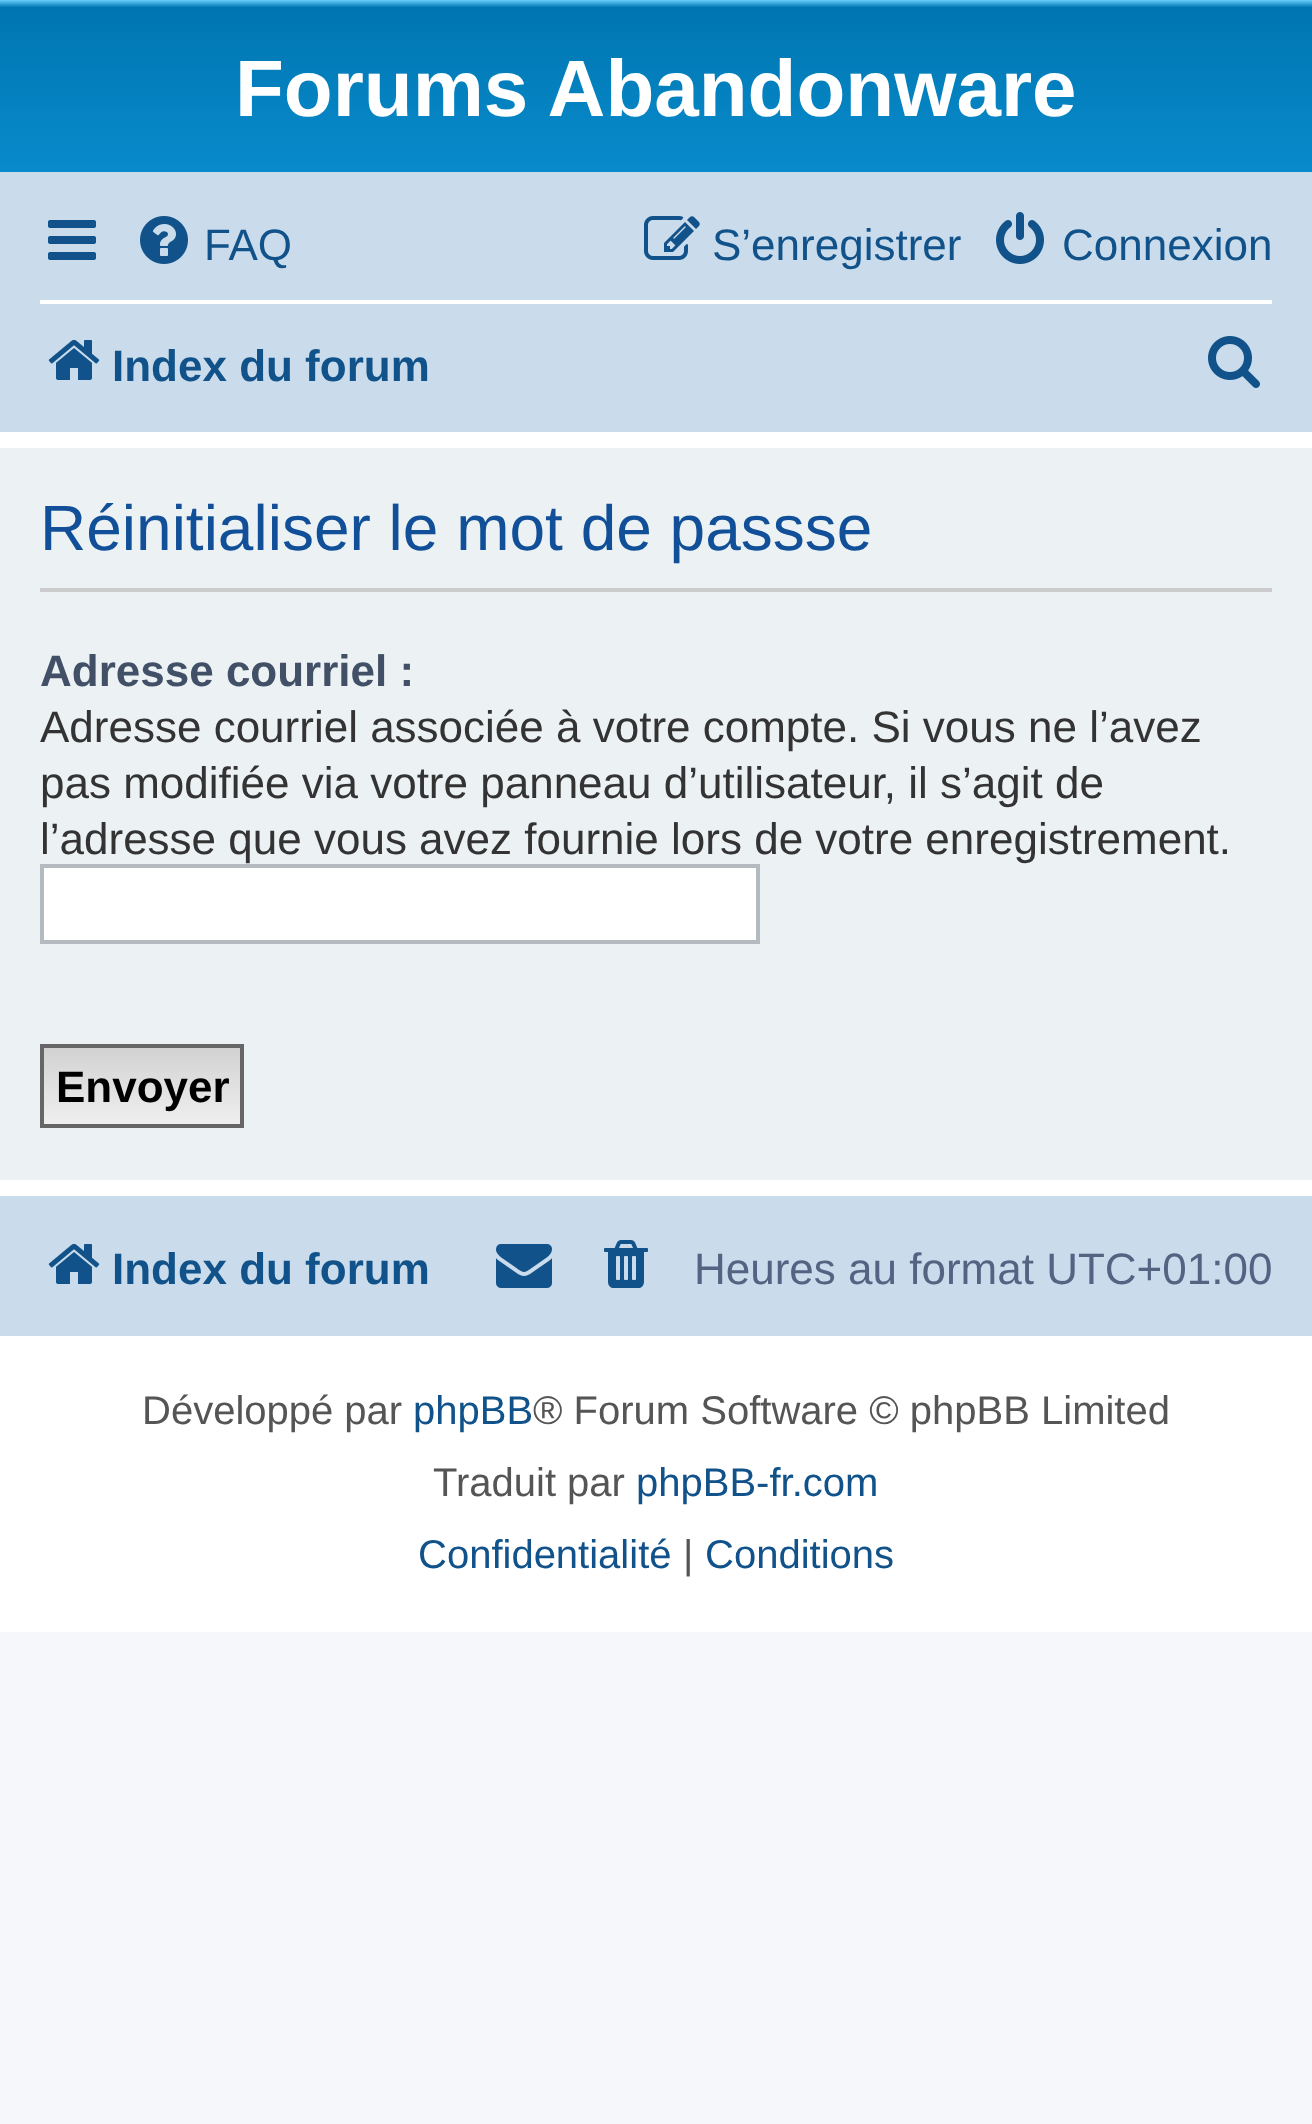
<!DOCTYPE html>
<meta charset="utf-8">
<style>body { margin: 0 } canvas { display: block }</style>
<canvas id="canvas" width="1312" height="2124"></canvas>
<img id="img1" src="img_01.png" hidden>
<img id="img2" src="img_02.png" hidden>
<img id="img3" src="img_03.png" hidden>
<img id="img4" src="img_04.png" hidden>
<img id="img5" src="img_05.png" hidden>
<img id="img6" src="img_06.png" hidden>
<img id="img7" src="img_07.png" hidden>
<img id="img8" src="img_08.png" hidden>
<script>
window.onload = function () {
	const canvas = document.getElementById("canvas");
	const ctx = canvas.getContext("2d");
	ctx.miterLimit = 4;
	ctx.fontKerning = "normal";
	function txt(s, x, y) {
		ctx.fillText(s, x, y);
	}
	function fill(x, y, w, h) {
		ctx.fillRect(x, y, w, h);
	}
	function img(id, x, y, w, h) {
		ctx.drawImage(document.getElementById(id), x, y, w, h);
	}
	let gradient;

	ctx.fillStyle = "#F5F7FA";
	fill(0, 0, 1312, 2124);
	ctx.fillStyle = "#FFFFFF";
	fill(0, 432, 1312, 1200);
	gradient = ctx.createLinearGradient(656, 0, 656, 368);
	gradient.addColorStop(0, "#6ACEFF");
	gradient.addColorStop(0.02, "#0076B1");
	gradient.addColorStop(1, "#12A3EB");
	ctx.fillStyle = gradient;
	fill(0, 0, 1312, 172);
	ctx.fillStyle = "#CADCEB";
	fill(0, 172, 1312, 260);
	img("img1", 48, 220, 48, 40);
	img("img2", 140, 216, 48, 48);
	img("img3", 644, 216, 56, 44);
	img("img4", 996, 212, 48, 52);
	ctx.fillStyle = "#FFFFFF";
	fill(40, 300, 1232, 4);
	img("img5", 48, 339, 52, 41);
	img("img6", 1208, 336, 52, 52);
	ctx.fillStyle = "#ECF1F3";
	fill(0, 448, 1312, 732);
	ctx.fillStyle = "#CCCCCC";
	fill(40, 588, 1232, 4);
	ctx.fillStyle = "#FFFFFF";
	ctx.beginPath();
	ctx.rect(42, 866, 716, 76);
	ctx.fill();
	ctx.strokeStyle = "#B4BAC0";
	ctx.lineWidth = 4;
	ctx.stroke();
	gradient = ctx.createLinearGradient(142, 1048, 142, 1124);
	gradient.addColorStop(0, "#D2D2D2");
	gradient.addColorStop(1, "#EFEFEF");
	ctx.fillStyle = gradient;
	fill(44, 1048, 196, 76);
	ctx.strokeStyle = "#666666";
	ctx.strokeRect(42, 1046, 200, 80);
	ctx.fillStyle = "#CADCEB";
	fill(0, 1196, 1312, 140);
	img("img5", 48, 1243, 52, 41);
	img("img7", 496, 1244, 56, 44);
	img("img8", 604, 1240, 44, 48);
	ctx.font = "bold 80px Liberation Sans";
	ctx.fillStyle = "#FFFFFF";
	txt("Forums Abandonware", 235, 116);
	ctx.font = "44px Liberation Sans";
	ctx.fillStyle = "#105289";
	txt("FAQ", 204, 260);
	txt("S’enregistrer", 712, 260);
	txt("Connexion", 1062, 260);
	ctx.font = "bold 44px Liberation Sans";
	txt("Index du forum", 112, 381);
	ctx.font = "64px Liberation Sans";
	ctx.fillStyle = "#115098";
	txt("Réinitialiser le mot de passse", 40, 550);
	ctx.font = "bold 44px Liberation Sans";
	ctx.fillStyle = "#425067";
	txt("Adresse courriel :", 40, 686);
	ctx.font = "44px Liberation Sans";
	ctx.fillStyle = "#333333";
	txt("Adresse courriel associée à votre compte. Si vous ne l’avez", 40, 742);
	txt("pas modifiée via votre panneau d’utilisateur, il s’agit de", 40, 798);
	txt("l’adresse que vous avez fournie lors de votre enregistrement.", 40, 854);
	ctx.font = "bold 44px Liberation Sans";
	ctx.fillStyle = "#000000";
	txt("Envoyer", 56, 1102);
	ctx.fillStyle = "#105289";
	txt("Index du forum", 112, 1284);
	ctx.font = "44px Liberation Sans";
	ctx.fillStyle = "#536482";
	txt("Heures au format UTC+01:00", 694, 1284);
	ctx.font = "40px Liberation Sans";
	ctx.fillStyle = "#555555";
	txt("Développé par", 142, 1424);
	ctx.fillStyle = "#105289";
	txt("phpBB", 413, 1424);
	ctx.fillStyle = "#555555";
	txt("® Forum Software © phpBB Limited", 533, 1424);
	txt("Traduit par", 433, 1496);
	ctx.fillStyle = "#105289";
	txt("phpBB-fr.com", 636, 1496);
	txt("Confidentialité", 418, 1568);
	ctx.fillStyle = "#555555";
	txt("|", 683, 1568);
	ctx.fillStyle = "#105289";
	txt("Conditions", 705, 1568);
};
</script>
